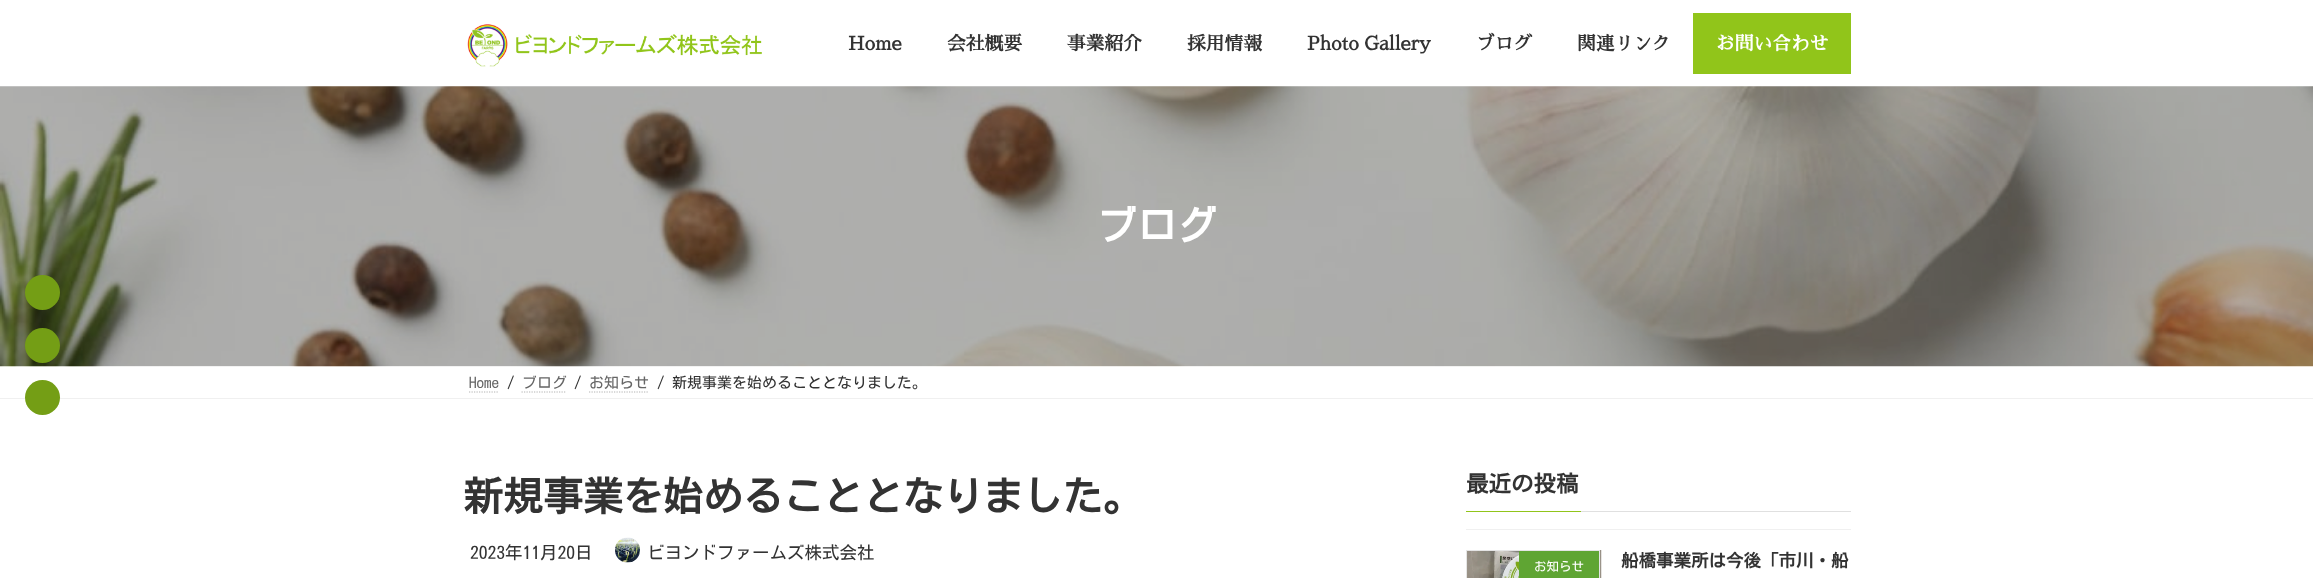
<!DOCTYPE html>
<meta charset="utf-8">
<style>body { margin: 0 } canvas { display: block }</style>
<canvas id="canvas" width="2313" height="578"></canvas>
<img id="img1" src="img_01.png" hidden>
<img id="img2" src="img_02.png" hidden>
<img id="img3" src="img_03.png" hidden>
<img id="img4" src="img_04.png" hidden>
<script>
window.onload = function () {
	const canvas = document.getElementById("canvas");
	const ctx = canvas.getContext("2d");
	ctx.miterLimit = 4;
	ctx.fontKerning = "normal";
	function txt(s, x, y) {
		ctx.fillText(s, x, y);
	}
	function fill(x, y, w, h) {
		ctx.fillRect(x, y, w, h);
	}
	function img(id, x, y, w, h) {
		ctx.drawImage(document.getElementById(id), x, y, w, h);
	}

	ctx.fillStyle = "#FFFFFF";
	fill(0, 0, 2313, 578);
	img("img1", 467, 24, 295, 43);
	ctx.fillStyle = "#91C51A";
	fill(1693, 13, 158, 61);
	ctx.fillStyle = "#F0F0F0";
	fill(0, 366, 2313, 1);
	img("img2", 0, 86, 2313, 281);
	ctx.fillStyle = "#749E15";
	ctx.beginPath();
	ctx.arc(42.5, 292.5, 17.5, 0, Math.PI * 2);
	ctx.fill();
	ctx.beginPath();
	ctx.arc(42.5, 345.5, 17.5, 0, Math.PI * 2);
	ctx.fill();
	ctx.fillStyle = "#F0F0F0";
	fill(0, 398, 2313, 1);
	ctx.fillStyle = "#749E15";
	ctx.beginPath();
	ctx.arc(42.5, 397.5, 17.5, 0, Math.PI * 2);
	ctx.fill();
	ctx.beginPath();
	ctx.moveTo(469, 392);
	ctx.lineTo(499, 392);
	ctx.strokeStyle = "#B3B3B3";
	ctx.lineWidth = 1.2;
	ctx.setLineDash([1.25, 1.25]);
	ctx.stroke();
	ctx.beginPath();
	ctx.moveTo(521.5, 392);
	ctx.lineTo(566.5, 392);
	ctx.stroke();
	ctx.beginPath();
	ctx.moveTo(589, 392);
	ctx.lineTo(649, 392);
	ctx.stroke();
	img("img3", 615, 537, 25, 26);
	ctx.fillStyle = "#E0E0E0";
	fill(1581, 511, 270, 1);
	ctx.fillStyle = "#91C51A";
	fill(1466, 511, 115, 1);
	ctx.fillStyle = "#F0F0F0";
	fill(1466, 529, 385, 1);
	img("img4", 1467, 550, 135, 28);
	ctx.strokeStyle = "#E5E5E5";
	ctx.lineWidth = 1;
	ctx.setLineDash([]);
	ctx.strokeRect(1466.5, 550.5, 133, 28);
	ctx.fillStyle = "#5FA533";
	fill(1519, 551, 80, 27);
	ctx.font = "bold 18.75px Sawarabi Mincho";
	ctx.fillStyle = "#333333";
	txt("Home", 848, 50);
	txt("会社概要", 947, 50);
	txt("事業紹介", 1067, 50);
	txt("採用情報", 1187, 50);
	txt("Photo Gallery", 1307, 50);
	txt("ブログ", 1476, 50);
	txt("関連リンク", 1577, 50);
	ctx.fillStyle = "#FFFFFF";
	txt("お問い合わせ", 1716, 50);
	ctx.font = "bold 40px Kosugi";
	txt("ブログ", 1097, 240);
	ctx.font = "15px Kosugi";
	ctx.fillStyle = "#666666";
	txt("Home", 469, 388);
	ctx.fillStyle = "#333333";
	txt("/", 507, 388);
	ctx.fillStyle = "#666666";
	txt("ブログ", 522, 388);
	ctx.fillStyle = "#333333";
	txt("/", 574, 388);
	ctx.fillStyle = "#666666";
	txt("お知らせ", 589, 388);
	ctx.fillStyle = "#333333";
	txt("/ 新規事業を始めることとなりました。", 657, 388);
	ctx.font = "bold 40px Kosugi";
	txt("新規事業を始めることとなりました。", 463, 511);
	ctx.font = "17.5px Kosugi";
	txt("2023年11月20日", 470, 559);
	txt("ビヨンドファームズ株式会社", 647, 559);
	ctx.font = "bold 22.5px Kosugi";
	txt("最近の投稿", 1466, 492);
	ctx.font = "12.5px Kosugi";
	ctx.fillStyle = "#FFFFFF";
	txt("お知らせ", 1534, 571);
	ctx.font = "bold 17.5px Kosugi";
	ctx.fillStyle = "#333333";
	txt("船橋事業所は今後「市川・船", 1621, 567);
};
</script>
